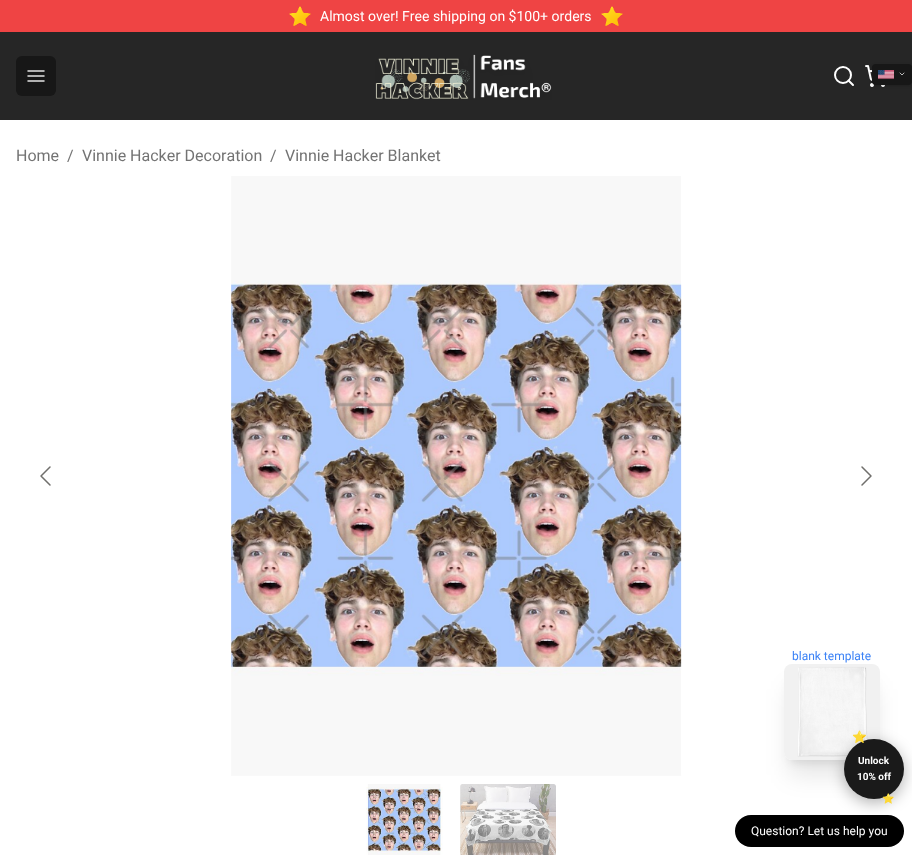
<!DOCTYPE html>
<meta charset="utf-8">
<style>body { margin: 0 } canvas { display: block }</style>
<canvas id="canvas" width="912" height="855"></canvas>
<img id="img1" src="img_01.png" hidden>
<img id="img2" src="img_02.png" hidden>
<img id="img3" src="img_03.png" hidden>
<img id="img4" src="img_04.png" hidden>
<img id="img5" src="img_05.png" hidden>
<img id="img6" src="img_06.png" hidden>
<img id="img7" src="img_07.png" hidden>
<img id="img8" src="img_08.png" hidden>
<script>
window.onload = function () {
	const canvas = document.getElementById("canvas");
	const ctx = canvas.getContext("2d");
	ctx.miterLimit = 4;
	ctx.fontKerning = "none";
	function txt(s, x, y) {
		ctx.fillText(s, x, y);
	}
	function fill(x, y, w, h) {
		ctx.fillRect(x, y, w, h);
	}
	function round(x, y, w, h, r) {
		ctx.beginPath();
		ctx.roundRect(x, y, w, h, r);
		ctx.fill();
	}
	function img(id, x, y, w, h) {
		ctx.drawImage(document.getElementById(id), x, y, w, h);
	}

	ctx.fillStyle = "#FFFFFF";
	fill(0, 0, 912, 855);
	ctx.fillStyle = "#EF4444";
	fill(0, 0, 912, 32);
	img("img1", 289, 6, 22, 20);
	img("img1", 601, 6, 22, 20);
	ctx.fillStyle = "#262626";
	fill(0, 32, 912, 88);
	ctx.fillStyle = "#171717";
	round(16, 56, 40, 40, 6);
	ctx.beginPath();
	ctx.moveTo(28, 71);
	ctx.lineTo(44, 71);
	ctx.moveTo(28, 76);
	ctx.lineTo(44, 76);
	ctx.moveTo(28, 81);
	ctx.lineTo(44, 81);
	ctx.strokeStyle = "#E5E5E5";
	ctx.lineWidth = 1.5;
	ctx.lineCap = "round";
	ctx.lineJoin = "round";
	ctx.stroke();
	img("img2", 375, 54, 177, 46);
	ctx.beginPath();
	ctx.moveTo(853, 85);
	ctx.lineTo(848.5, 80.5);
	ctx.strokeStyle = "#FFFFFF";
	ctx.lineWidth = 2;
	ctx.stroke();
	ctx.beginPath();
	ctx.arc(843, 75, 8, 0, Math.PI * 2);
	ctx.stroke();
	img("img3", 865, 65, 20, 22);
	ctx.fillStyle = "rgba(0, 0, 0, 0.1)";
	ctx.filter = "blur(1px)";
	ctx.beginPath();
	ctx.roundRect(873, 66, 38, 19, 3);
	ctx.fill();
	ctx.filter = "none";
	ctx.filter = "blur(1.5px)";
	ctx.beginPath();
	ctx.roundRect(872, 65, 40, 21, 4);
	ctx.fill();
	ctx.filter = "none";
	ctx.fillStyle = "#171717";
	round(872, 64, 40, 21, 4);
	img("img4", 878, 70, 16, 9);
	ctx.beginPath();
	ctx.moveTo(900, 73);
	ctx.lineTo(902, 75);
	ctx.lineTo(904, 73);
	ctx.lineWidth = 0.7;
	ctx.stroke();
	img("img5", 231, 176, 451, 600);
	ctx.beginPath();
	ctx.moveTo(50, 467);
	ctx.lineTo(41, 476);
	ctx.lineTo(50, 485);
	ctx.strokeStyle = "#706F6C";
	ctx.lineWidth = 1.5;
	ctx.stroke();
	ctx.beginPath();
	ctx.moveTo(862, 467);
	ctx.lineTo(871, 476);
	ctx.lineTo(862, 485);
	ctx.stroke();
	ctx.fillStyle = "rgba(0, 0, 0, 0.1)";
	ctx.filter = "blur(5px)";
	ctx.beginPath();
	ctx.roundRect(790, 678, 84, 84, 2);
	ctx.fill();
	ctx.filter = "none";
	ctx.filter = "blur(12.5px)";
	ctx.beginPath();
	ctx.roundRect(789, 689, 86, 86, 3);
	ctx.fill();
	ctx.filter = "none";
	ctx.fillStyle = "#FFFFFF";
	round(784, 664, 96, 96, 8);
	img("img6", 784, 664, 96, 96);
	img("img7", 366, 784, 77, 71);
	img("img8", 460, 784, 96, 71);
	ctx.fillStyle = "#000000";
	round(735, 815, 169, 32, 16);
	ctx.fillStyle = "rgba(0, 0, 0, 0.3)";
	ctx.filter = "blur(7.5px)";
	ctx.beginPath();
	ctx.roundRect(844, 743, 60, 60, 30);
	ctx.fill();
	ctx.filter = "none";
	ctx.fillStyle = "#1A1A1A";
	ctx.beginPath();
	ctx.arc(874, 769, 30, 0, Math.PI * 2);
	ctx.fill();
	ctx.font = "14px Roboto";
	ctx.fillStyle = "#FFFFFF";
	txt("Almost over! Free shipping on $100+ orders", 320, 21);
	ctx.font = "16px Roboto";
	ctx.fillStyle = "#737373";
	txt("Home", 16, 161);
	txt("/", 67, 161);
	txt("Vinnie Hacker Decoration", 82, 161);
	txt("/", 270, 161);
	txt("Vinnie Hacker Blanket", 285, 161);
	ctx.font = "12px Roboto";
	ctx.fillStyle = "#3B82F6";
	txt("blank template", 792, 660);
	ctx.font = "bold 12px Noto Color Emoji";
	ctx.fillStyle = "#FFD700";
	txt("⭐", 852, 741);
	ctx.font = "bold 10px Roboto";
	ctx.fillStyle = "#FFFFFF";
	txt("Unlock", 858, 764);
	txt("10% off", 857, 780);
	ctx.font = "bold 10px Noto Color Emoji";
	ctx.fillStyle = "#FFD700";
	txt("⭐", 882, 802);
	ctx.font = "12px Roboto";
	ctx.fillStyle = "#FFFFFF";
	txt("Question? Let us help you", 751, 835);
};
</script>
